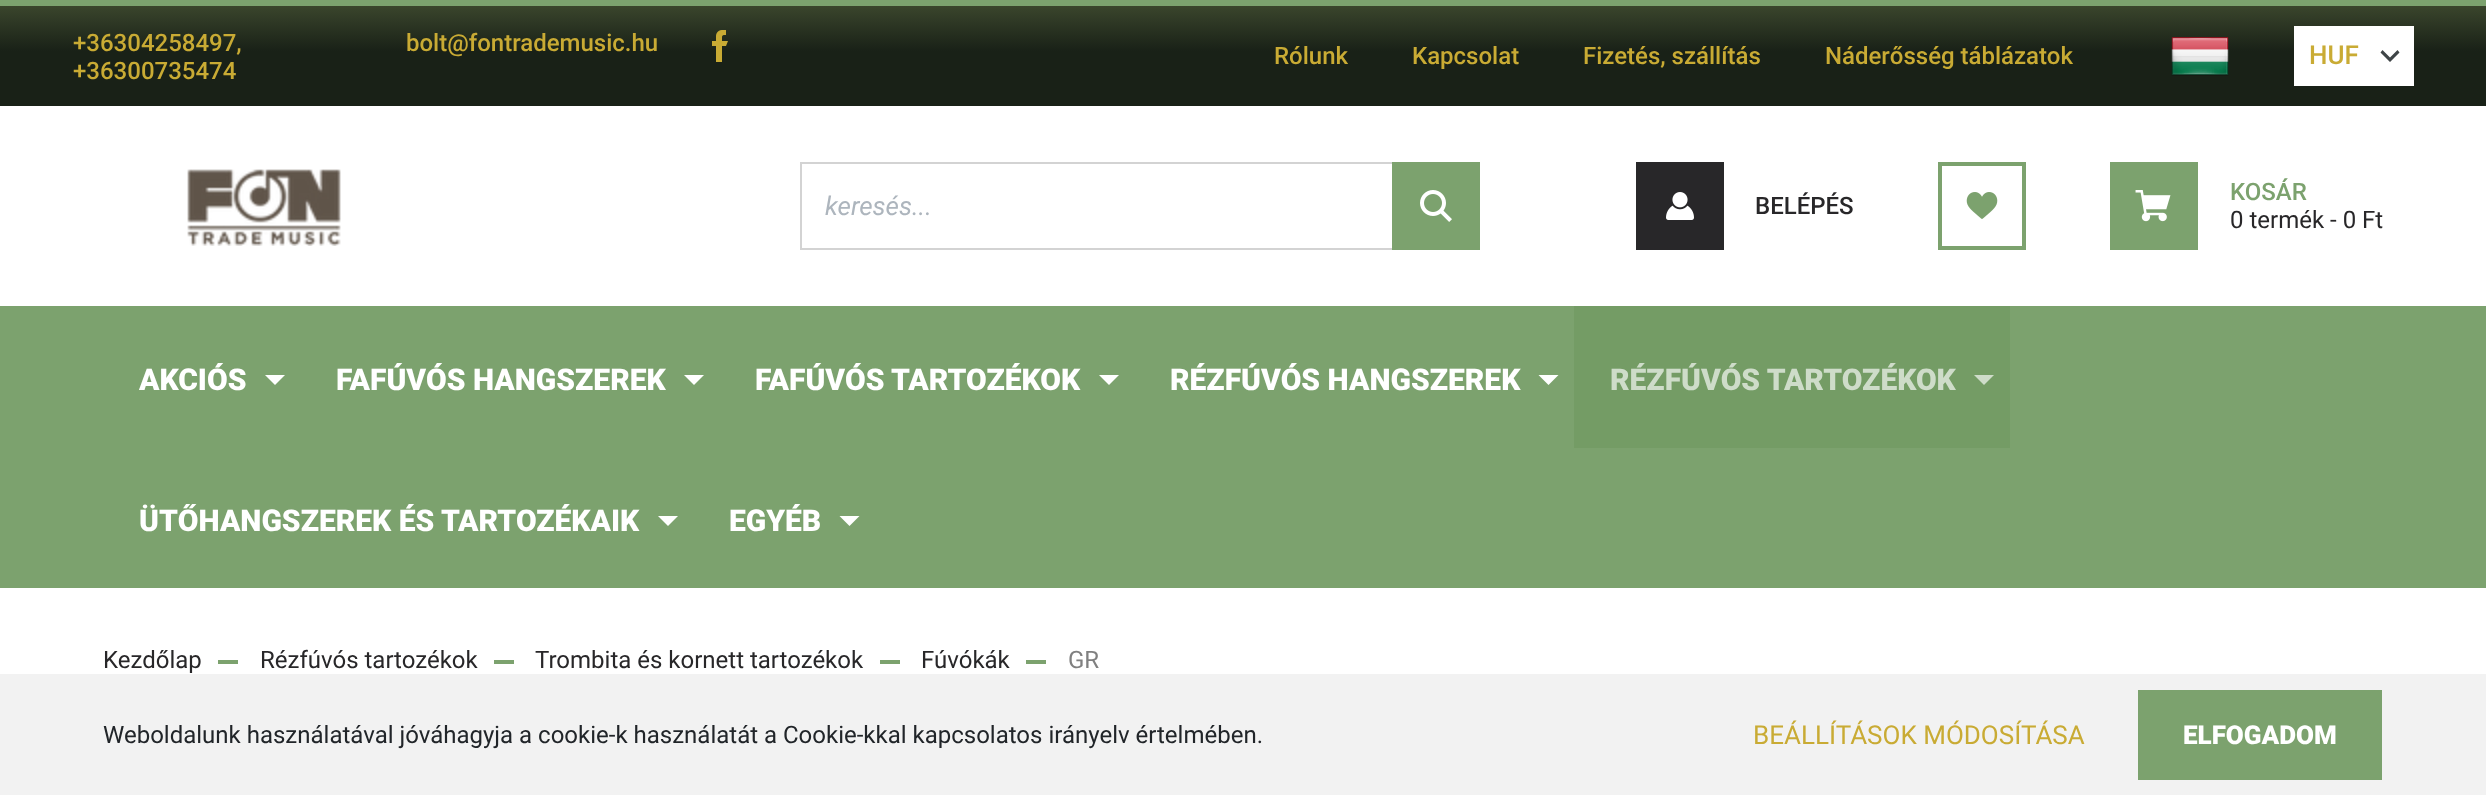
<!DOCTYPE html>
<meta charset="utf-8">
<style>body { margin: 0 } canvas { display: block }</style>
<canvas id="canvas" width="2486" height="795"></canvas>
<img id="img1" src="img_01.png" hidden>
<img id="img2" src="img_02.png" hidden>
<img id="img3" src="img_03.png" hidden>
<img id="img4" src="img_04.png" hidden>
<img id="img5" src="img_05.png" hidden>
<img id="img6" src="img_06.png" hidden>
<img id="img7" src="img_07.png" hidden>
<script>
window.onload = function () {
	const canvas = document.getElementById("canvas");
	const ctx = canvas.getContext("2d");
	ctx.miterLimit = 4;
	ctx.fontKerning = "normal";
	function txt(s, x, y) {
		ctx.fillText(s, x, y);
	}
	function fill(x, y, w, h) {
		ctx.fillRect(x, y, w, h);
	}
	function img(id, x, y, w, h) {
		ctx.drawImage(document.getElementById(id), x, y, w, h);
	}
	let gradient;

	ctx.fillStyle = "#FFFFFF";
	fill(0, 0, 2486, 795);
	ctx.fillStyle = "#7CA26E";
	fill(0, 0, 2486, 6);
	gradient = ctx.createLinearGradient(1243, 6, 1243, 106);
	gradient.addColorStop(0, "#3A452C");
	gradient.addColorStop(0.45, "#192117");
	ctx.fillStyle = gradient;
	fill(0, 6, 2486, 100);
	img("img1", 712, 30, 16, 32);
	img("img2", 2171, 37, 58, 39);
	ctx.fillStyle = "#FFFFFF";
	fill(2294, 26, 120, 60);
	ctx.fillStyle = "#3F4547";
	ctx.beginPath();
	ctx.moveTo(2397.5, 50);
	ctx.lineTo(2390, 57.5);
	ctx.lineTo(2382.5, 50);
	ctx.lineTo(2380.5, 52.5);
	ctx.lineTo(2390, 62);
	ctx.lineTo(2399.5, 52.5);
	ctx.closePath();
	ctx.fill();
	img("img3", 187, 169, 154, 77);
	ctx.strokeStyle = "#D3D3D3";
	ctx.lineWidth = 2;
	ctx.strokeRect(801, 163, 678, 86);
	ctx.fillStyle = "#7CA26E";
	fill(1392, 162, 88, 88);
	img("img4", 1420, 190, 32, 32);
	ctx.fillStyle = "#282729";
	fill(1636, 162, 88, 88);
	img("img5", 1666, 192, 28, 28);
	ctx.strokeStyle = "#7CA26E";
	ctx.lineWidth = 4;
	ctx.strokeRect(1940, 164, 84, 84);
	img("img6", 1966, 192, 32, 27);
	ctx.fillStyle = "#7CA26E";
	fill(2110, 162, 88, 88);
	img("img7", 2135, 190, 36, 32);
	fill(0, 306, 2486, 282);
	ctx.fillStyle = "#FFFFFF";
	ctx.beginPath();
	ctx.moveTo(265, 375);
	ctx.lineTo(285, 375);
	ctx.lineTo(275, 385);
	ctx.closePath();
	ctx.fill();
	ctx.beginPath();
	ctx.moveTo(684, 375);
	ctx.lineTo(704, 375);
	ctx.lineTo(694, 385);
	ctx.closePath();
	ctx.fill();
	ctx.beginPath();
	ctx.moveTo(1099, 375);
	ctx.lineTo(1119, 375);
	ctx.lineTo(1109, 385);
	ctx.closePath();
	ctx.fill();
	ctx.beginPath();
	ctx.moveTo(1538.5, 375);
	ctx.lineTo(1558.5, 375);
	ctx.lineTo(1548.5, 385);
	ctx.closePath();
	ctx.fill();
	ctx.fillStyle = "#749C65";
	fill(1574, 306, 436, 142);
	ctx.fillStyle = "#CEDCC9";
	ctx.beginPath();
	ctx.moveTo(1974, 375);
	ctx.lineTo(1994, 375);
	ctx.lineTo(1984, 385);
	ctx.closePath();
	ctx.fill();
	ctx.fillStyle = "#FFFFFF";
	ctx.beginPath();
	ctx.moveTo(658, 516);
	ctx.lineTo(678, 516);
	ctx.lineTo(668, 526);
	ctx.closePath();
	ctx.fill();
	ctx.beginPath();
	ctx.moveTo(839.5, 516);
	ctx.lineTo(859.5, 516);
	ctx.lineTo(849.5, 526);
	ctx.closePath();
	ctx.fill();
	ctx.fillStyle = "#7CA26E";
	fill(218, 660, 20, 4);
	fill(494, 660, 20, 4);
	fill(880, 660, 20, 4);
	fill(1026, 660, 20, 4);
	ctx.fillStyle = "#F2F2F2";
	fill(0, 674, 2486, 121);
	ctx.fillStyle = "#7CA26E";
	fill(2138, 690, 244, 90);
	ctx.font = "500 24px Roboto";
	ctx.fillStyle = "#C9AB34";
	txt("+36304258497,", 73, 51);
	txt("+36300735474", 73, 79);
	txt("bolt@fontrademusic.hu", 406, 51);
	txt("Rólunk", 1274, 64);
	txt("Kapcsolat", 1412, 64);
	txt("Fizetés, szállítás", 1583, 64);
	txt("Náderősség táblázatok", 1825, 64);
	ctx.font = "500 26px Roboto";
	txt("HUF", 2309, 64);
	ctx.font = "italic 26px Roboto";
	ctx.fillStyle = "#ADB5BD";
	txt("keresés...", 825, 215);
	ctx.font = "500 24px Roboto";
	ctx.fillStyle = "#282729";
	txt("BELÉPÉS", 1755, 214);
	ctx.fillStyle = "#7CA26E";
	txt("KOSÁR", 2230, 200);
	ctx.font = "24px Roboto";
	ctx.fillStyle = "#282729";
	txt("0 termék - 0 Ft", 2230, 228);
	ctx.font = "900 30px Roboto";
	ctx.fillStyle = "#FFFFFF";
	txt("AKCIÓS", 139, 390);
	txt("FAFÚVÓS HANGSZEREK", 336, 390);
	txt("FAFÚVÓS TARTOZÉKOK", 755, 390);
	txt("RÉZFÚVÓS HANGSZEREK", 1170, 390);
	ctx.fillStyle = "#CEDCC9";
	txt("RÉZFÚVÓS TARTOZÉKOK", 1610, 390);
	ctx.fillStyle = "#FFFFFF";
	txt("ÜTŐHANGSZEREK ÉS TARTOZÉKAIK", 139, 531);
	txt("EGYÉB", 729, 531);
	ctx.font = "24px Roboto";
	ctx.fillStyle = "#282729";
	txt("Kezdőlap", 103, 668);
	txt("Rézfúvós tartozékok", 260, 668);
	txt("Trombita és kornett tartozékok", 535, 668);
	txt("Fúvókák", 921, 668);
	ctx.fillStyle = "#808080";
	txt("GR", 1068, 668);
	ctx.fillStyle = "#212529";
	txt("Weboldalunk használatával jóváhagyja a cookie-k használatát a Cookie-kkal kapcsolatos irányelv értelmében.", 103, 743);
	ctx.font = "26px Roboto";
	ctx.fillStyle = "#C9AB34";
	txt("BEÁLLÍTÁSOK MÓDOSÍTÁSA", 1753, 744);
	ctx.font = "900 26px Roboto";
	ctx.fillStyle = "#FFFFFF";
	txt("ELFOGADOM", 2183, 744);
};
</script>
